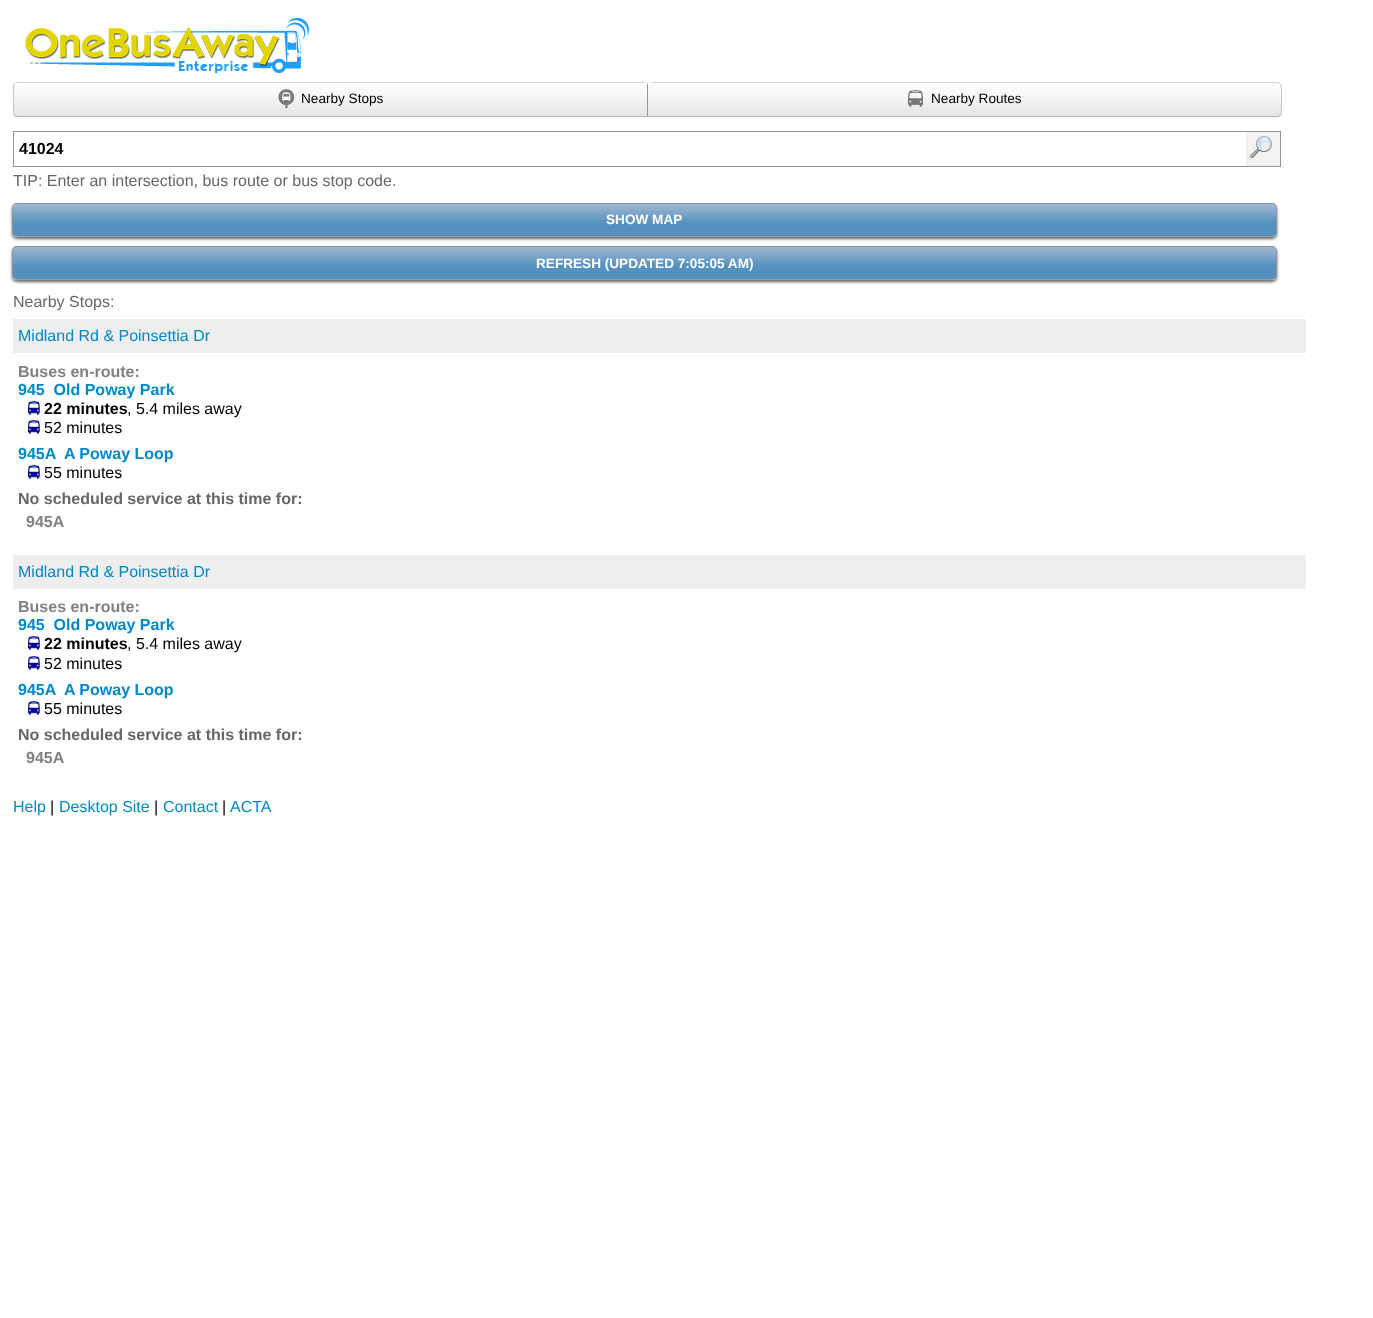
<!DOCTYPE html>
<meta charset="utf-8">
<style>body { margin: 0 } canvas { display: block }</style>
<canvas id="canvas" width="1373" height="1318"></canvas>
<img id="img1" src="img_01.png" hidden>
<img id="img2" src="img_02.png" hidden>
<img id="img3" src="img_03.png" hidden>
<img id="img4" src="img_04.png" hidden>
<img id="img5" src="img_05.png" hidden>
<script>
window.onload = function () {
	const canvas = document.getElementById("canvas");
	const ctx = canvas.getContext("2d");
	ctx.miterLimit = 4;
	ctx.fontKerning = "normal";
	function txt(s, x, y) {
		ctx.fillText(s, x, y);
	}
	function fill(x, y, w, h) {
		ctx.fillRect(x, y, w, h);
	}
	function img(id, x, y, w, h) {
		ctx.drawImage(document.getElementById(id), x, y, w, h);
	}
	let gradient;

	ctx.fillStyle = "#FFFFFF";
	fill(0, 0, 1373, 1318);
	img("img1", 25, 18, 284, 55);
	ctx.fillStyle = "rgba(240, 240, 240, 0.75)";
	ctx.filter = "blur(1px)";
	ctx.beginPath();
	ctx.rect(13, 84, 1266, 34);
	ctx.fill();
	ctx.filter = "none";
	ctx.fillStyle = "rgba(200, 200, 200, 0.75)";
	ctx.filter = "blur(0.5px)";
	ctx.beginPath();
	ctx.roundRect(13, 82, 635, 34, 5);
	ctx.fill();
	ctx.filter = "none";
	ctx.save();
	ctx.beginPath();
	ctx.roundRect(13, 83, 635, 34, [5, 0, 0, 5]);
	ctx.clip();
	gradient = ctx.createLinearGradient(331, 84, 331, 116);
	gradient.addColorStop(0, "#FFFFFF");
	gradient.addColorStop(1, "#E5E5E5");
	ctx.fillStyle = gradient;
	fill(13, 84, 634, 32);
	ctx.restore();
	ctx.fillStyle = "#FFFFFF";
	ctx.beginPath();
	ctx.moveTo(18, 83);
	ctx.bezierCurveTo(16, 83, 15, 84, 14, 84);
	ctx.lineTo(15, 85);
	ctx.lineTo(18, 84);
	ctx.lineTo(647, 84);
	ctx.lineTo(648, 83);
	ctx.closePath();
	ctx.fill();
	ctx.fillStyle = "#969696";
	ctx.beginPath();
	ctx.moveTo(648, 83);
	ctx.lineTo(647, 84);
	ctx.lineTo(647, 116);
	ctx.lineTo(648, 117);
	ctx.closePath();
	ctx.fill();
	ctx.fillStyle = "#B4B4B4";
	ctx.beginPath();
	ctx.moveTo(648, 117);
	ctx.lineTo(647, 116);
	ctx.lineTo(18, 116);
	ctx.lineTo(15, 115);
	ctx.lineTo(14, 116);
	ctx.bezierCurveTo(15, 116, 16, 117, 18, 117);
	ctx.closePath();
	ctx.fill();
	ctx.fillStyle = "#C8C8C8";
	ctx.beginPath();
	ctx.moveTo(13, 88);
	ctx.lineTo(13, 112);
	ctx.bezierCurveTo(13, 113.5, 13.5, 115, 14.5, 115.5);
	ctx.lineTo(15, 115);
	ctx.bezierCurveTo(14.5, 114, 14, 113, 14, 112);
	ctx.lineTo(14, 88);
	ctx.bezierCurveTo(14, 87, 14.5, 86, 15, 85);
	ctx.lineTo(14.5, 84.5);
	ctx.bezierCurveTo(13.5, 85, 13, 86.5, 13, 88);
	ctx.closePath();
	ctx.fill();
	img("img2", 278, 89, 17, 19);
	ctx.fillStyle = "rgba(200, 200, 200, 0.75)";
	ctx.filter = "blur(0.5px)";
	ctx.beginPath();
	ctx.roundRect(648, 82, 634, 34, 5);
	ctx.fill();
	ctx.filter = "none";
	ctx.save();
	ctx.beginPath();
	ctx.roundRect(648, 83, 634, 34, [0, 5, 5, 0]);
	ctx.clip();
	gradient = ctx.createLinearGradient(965, 84, 965, 116);
	gradient.addColorStop(0, "#FFFFFF");
	gradient.addColorStop(1, "#E5E5E5");
	ctx.fillStyle = gradient;
	fill(648, 84, 634, 32);
	ctx.restore();
	ctx.fillStyle = "#FFFFFF";
	ctx.beginPath();
	ctx.moveTo(648, 83);
	ctx.lineTo(648, 84);
	ctx.lineTo(1277, 84);
	ctx.lineTo(1280, 85);
	ctx.lineTo(1281, 84);
	ctx.bezierCurveTo(1280, 84, 1278, 83, 1277, 83);
	ctx.closePath();
	ctx.fill();
	ctx.fillStyle = "#C8C8C8";
	ctx.beginPath();
	ctx.moveTo(1280, 115);
	ctx.bezierCurveTo(1280.5, 114, 1281, 113, 1281, 112);
	ctx.lineTo(1281, 88);
	ctx.bezierCurveTo(1281, 87, 1280.5, 86, 1280, 85);
	ctx.lineTo(1280.5, 84.5);
	ctx.bezierCurveTo(1281.5, 85, 1282, 86.5, 1282, 88);
	ctx.lineTo(1282, 112);
	ctx.bezierCurveTo(1282, 113.5, 1281.5, 115, 1280.5, 115.5);
	ctx.closePath();
	ctx.fill();
	ctx.fillStyle = "#B4B4B4";
	ctx.beginPath();
	ctx.moveTo(648, 116);
	ctx.lineTo(648, 117);
	ctx.lineTo(1277, 117);
	ctx.bezierCurveTo(1278, 117, 1280, 116, 1281, 116);
	ctx.lineTo(1280, 115);
	ctx.lineTo(1277, 116);
	ctx.closePath();
	ctx.fill();
	img("img3", 908, 90, 15, 17);
	ctx.strokeStyle = "#969696";
	ctx.strokeRect(13.5, 131.5, 1267, 35);
	ctx.fillStyle = "#F2F2F2";
	fill(1246, 132, 34, 34);
	img("img4", 1250, 136, 22, 22);
	ctx.save();
	ctx.beginPath();
	ctx.moveTo(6, 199);
	ctx.lineTo(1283, 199);
	ctx.lineTo(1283, 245);
	ctx.lineTo(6, 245);
	ctx.closePath();
	ctx.moveTo(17, 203);
	ctx.lineTo(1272, 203);
	ctx.bezierCurveTo(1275, 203, 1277, 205, 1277, 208);
	ctx.lineTo(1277, 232);
	ctx.bezierCurveTo(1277, 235, 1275, 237, 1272, 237);
	ctx.lineTo(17, 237);
	ctx.bezierCurveTo(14, 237, 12, 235, 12, 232);
	ctx.lineTo(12, 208);
	ctx.bezierCurveTo(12, 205, 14, 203, 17, 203);
	ctx.closePath();
	ctx.clip("evenodd");
	ctx.fillStyle = "#646464";
	ctx.filter = "blur(1.5px)";
	ctx.beginPath();
	ctx.roundRect(12, 205, 1265, 34, 5);
	ctx.fill();
	ctx.filter = "none";
	ctx.restore();
	ctx.save();
	ctx.beginPath();
	ctx.roundRect(12, 203, 1265, 34, 5);
	ctx.clip();
	gradient = ctx.createLinearGradient(645, 172, 645, 204);
	gradient.addColorStop(0, "rgba(117, 148, 186, 0.68)");
	gradient.addColorStop(0.61, "rgba(0, 91, 160, 0.67)");
	ctx.fillStyle = gradient;
	fill(12, 203, 1265, 1);
	gradient = ctx.createLinearGradient(645, 204, 645, 236);
	gradient.addColorStop(0, "rgba(117, 148, 186, 0.68)");
	gradient.addColorStop(0.61, "rgba(0, 91, 160, 0.67)");
	ctx.fillStyle = gradient;
	fill(12, 204, 1265, 32);
	gradient = ctx.createLinearGradient(645, 236, 645, 268);
	gradient.addColorStop(0, "rgba(117, 148, 186, 0.68)");
	gradient.addColorStop(0.61, "rgba(0, 91, 160, 0.67)");
	ctx.fillStyle = gradient;
	fill(12, 236, 1265, 1);
	ctx.restore();
	ctx.beginPath();
	ctx.roundRect(12.5, 203.5, 1264, 33, 4.5);
	ctx.strokeStyle = "rgba(150, 150, 150, 0.75)";
	ctx.stroke();
	ctx.save();
	ctx.beginPath();
	ctx.moveTo(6, 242);
	ctx.lineTo(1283, 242);
	ctx.lineTo(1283, 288);
	ctx.lineTo(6, 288);
	ctx.closePath();
	ctx.moveTo(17, 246);
	ctx.lineTo(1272, 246);
	ctx.bezierCurveTo(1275, 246, 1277, 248, 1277, 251);
	ctx.lineTo(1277, 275);
	ctx.bezierCurveTo(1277, 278, 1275, 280, 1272, 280);
	ctx.lineTo(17, 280);
	ctx.bezierCurveTo(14, 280, 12, 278, 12, 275);
	ctx.lineTo(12, 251);
	ctx.bezierCurveTo(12, 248, 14, 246, 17, 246);
	ctx.closePath();
	ctx.clip("evenodd");
	ctx.fillStyle = "#646464";
	ctx.filter = "blur(1.5px)";
	ctx.beginPath();
	ctx.roundRect(12, 248, 1265, 34, 5);
	ctx.fill();
	ctx.filter = "none";
	ctx.restore();
	ctx.save();
	ctx.beginPath();
	ctx.roundRect(12, 246, 1265, 34, 5);
	ctx.clip();
	gradient = ctx.createLinearGradient(645, 215, 645, 247);
	gradient.addColorStop(0, "rgba(117, 148, 186, 0.68)");
	gradient.addColorStop(0.61, "rgba(0, 91, 160, 0.67)");
	ctx.fillStyle = gradient;
	fill(12, 246, 1265, 1);
	gradient = ctx.createLinearGradient(645, 247, 645, 279);
	gradient.addColorStop(0, "rgba(117, 148, 186, 0.68)");
	gradient.addColorStop(0.61, "rgba(0, 91, 160, 0.67)");
	ctx.fillStyle = gradient;
	fill(12, 247, 1265, 32);
	gradient = ctx.createLinearGradient(645, 279, 645, 311);
	gradient.addColorStop(0, "rgba(117, 148, 186, 0.68)");
	gradient.addColorStop(0.61, "rgba(0, 91, 160, 0.67)");
	ctx.fillStyle = gradient;
	fill(12, 279, 1265, 1);
	ctx.restore();
	ctx.beginPath();
	ctx.roundRect(12.5, 246.5, 1264, 33, 4.5);
	ctx.stroke();
	ctx.fillStyle = "#EEEEEE";
	fill(13, 319, 1293, 34);
	img("img5", 28, 401, 12, 14);
	img("img5", 28, 420, 12, 14);
	img("img5", 28, 465, 12, 14);
	fill(13, 555, 1293, 34);
	img("img5", 28, 636, 12, 14);
	img("img5", 28, 656, 12, 14);
	img("img5", 28, 701, 12, 14);
	ctx.font = "13.6px Liberation Sans";
	ctx.fillStyle = "#000000";
	txt("Nearby Stops", 301, 103);
	txt("Nearby Routes", 931, 103);
	ctx.font = "bold 16px Liberation Sans";
	txt("41024", 19, 154);
	ctx.font = "16px Liberation Sans";
	ctx.fillStyle = "#666666";
	txt("TIP: Enter an intersection, bus route or bus stop code.", 13, 186);
	ctx.font = "bold 13.6px Liberation Sans";
	ctx.fillStyle = "#FFFFFF";
	txt("SHOW MAP", 606, 224);
	txt("REFRESH (UPDATED 7:05:05 AM)", 536, 268);
	ctx.font = "16px Liberation Sans";
	ctx.fillStyle = "#666666";
	txt("Nearby Stops:", 13, 307);
	ctx.fillStyle = "#0189C7";
	txt("Midland Rd & Poinsettia Dr", 18, 341);
	ctx.font = "bold 16px Liberation Sans";
	ctx.fillStyle = "#818181";
	txt("Buses en-route:", 18, 377);
	ctx.fillStyle = "#0189C7";
	txt("945  Old Poway Park", 18, 395);
	ctx.fillStyle = "#000000";
	txt("22 minutes", 44, 414);
	ctx.font = "16px Liberation Sans";
	txt(", 5.4 miles away", 127, 414);
	txt("52 minutes", 44, 433);
	ctx.font = "bold 16px Liberation Sans";
	ctx.fillStyle = "#0189C7";
	txt("945A  A Poway Loop", 18, 459);
	ctx.font = "16px Liberation Sans";
	ctx.fillStyle = "#000000";
	txt("55 minutes", 44, 478);
	ctx.font = "bold 16px Liberation Sans";
	ctx.fillStyle = "#666666";
	txt("No scheduled service at this time for:", 18, 504);
	ctx.fillStyle = "#818181";
	txt("945A", 26, 527);
	ctx.font = "16px Liberation Sans";
	ctx.fillStyle = "#0189C7";
	txt("Midland Rd & Poinsettia Dr", 18, 577);
	ctx.font = "bold 16px Liberation Sans";
	ctx.fillStyle = "#818181";
	txt("Buses en-route:", 18, 612);
	ctx.fillStyle = "#0189C7";
	txt("945  Old Poway Park", 18, 630);
	ctx.fillStyle = "#000000";
	txt("22 minutes", 44, 649);
	ctx.font = "16px Liberation Sans";
	txt(", 5.4 miles away", 127, 649);
	txt("52 minutes", 44, 669);
	ctx.font = "bold 16px Liberation Sans";
	ctx.fillStyle = "#0189C7";
	txt("945A  A Poway Loop", 18, 695);
	ctx.font = "16px Liberation Sans";
	ctx.fillStyle = "#000000";
	txt("55 minutes", 44, 714);
	ctx.font = "bold 16px Liberation Sans";
	ctx.fillStyle = "#666666";
	txt("No scheduled service at this time for:", 18, 740);
	ctx.fillStyle = "#818181";
	txt("945A", 26, 763);
	ctx.font = "16px Liberation Sans";
	ctx.fillStyle = "#0189C7";
	txt("Help", 13, 812);
	ctx.fillStyle = "#000000";
	txt("|", 50, 812);
	ctx.fillStyle = "#0189C7";
	txt("Desktop Site", 59, 812);
	ctx.fillStyle = "#000000";
	txt("|", 154, 812);
	ctx.fillStyle = "#0189C7";
	txt("Contact", 163, 812);
	ctx.fillStyle = "#000000";
	txt("|", 222, 812);
	ctx.fillStyle = "#0189C7";
	txt("ACTA", 230, 812);
};
</script>
